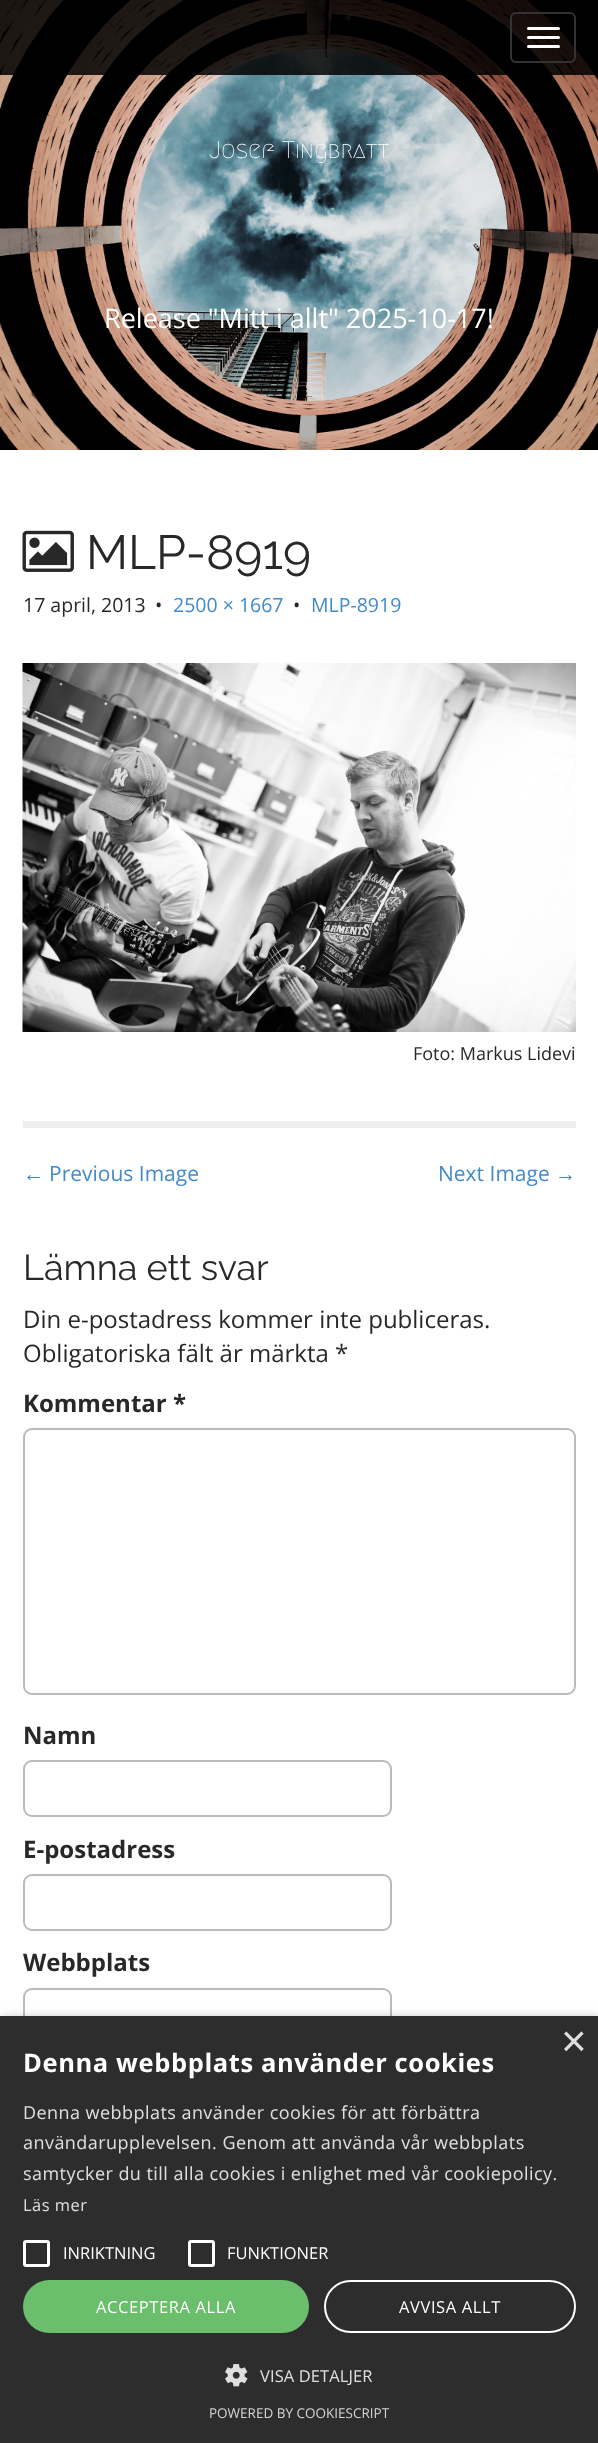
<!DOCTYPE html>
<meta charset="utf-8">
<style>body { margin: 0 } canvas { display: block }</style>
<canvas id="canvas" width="598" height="2443"></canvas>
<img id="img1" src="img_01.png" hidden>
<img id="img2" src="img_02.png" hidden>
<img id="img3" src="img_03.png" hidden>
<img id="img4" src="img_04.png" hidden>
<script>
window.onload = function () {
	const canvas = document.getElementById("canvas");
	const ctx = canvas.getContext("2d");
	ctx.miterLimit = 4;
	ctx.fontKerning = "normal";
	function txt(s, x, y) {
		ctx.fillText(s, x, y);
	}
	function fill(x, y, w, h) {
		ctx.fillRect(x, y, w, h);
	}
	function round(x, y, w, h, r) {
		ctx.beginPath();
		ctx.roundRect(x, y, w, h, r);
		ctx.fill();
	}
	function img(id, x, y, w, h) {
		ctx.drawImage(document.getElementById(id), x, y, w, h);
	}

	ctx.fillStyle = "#FFFFFF";
	fill(0, 0, 598, 2443);
	img("img1", 0, 0, 598, 450);
	ctx.fillStyle = "rgba(0, 0, 0, 0.85)";
	fill(0, 0, 595, 75);
	ctx.beginPath();
	ctx.roundRect(511, 13, 64, 49, 5);
	ctx.strokeStyle = "#333333";
	ctx.lineWidth = 2;
	ctx.stroke();
	ctx.fillStyle = "#FFFFFF";
	round(527, 27, 33, 3, 1.5);
	round(527, 36, 33, 3, 1.5);
	round(527, 45, 33, 3, 1.5);
	ctx.fillStyle = "#EEEEEE";
	fill(23, 1121, 553, 7);
	img("img2", 22, 530, 52, 42);
	img("img3", 22, 663, 554, 369);
	ctx.beginPath();
	ctx.roundRect(24, 1429, 551, 265, 8);
	ctx.strokeStyle = "#BBBBBB";
	ctx.stroke();
	ctx.beginPath();
	ctx.roundRect(24, 1761, 367, 55, 8);
	ctx.stroke();
	ctx.beginPath();
	ctx.roundRect(24, 1875, 367, 55, 8);
	ctx.stroke();
	ctx.beginPath();
	ctx.roundRect(24, 1989, 367, 55, 8);
	ctx.stroke();
	ctx.fillStyle = "rgba(0, 0, 0, 0.35)";
	ctx.filter = "blur(6px)";
	ctx.beginPath();
	ctx.rect(2, 2019, 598, 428);
	ctx.fill();
	ctx.filter = "none";
	ctx.fillStyle = "#2D2D2D";
	fill(0, 2016, 598, 427);
	ctx.beginPath();
	ctx.roundRect(24.5, 2241.5, 24, 24, 1.5);
	ctx.strokeStyle = "#FFFFFF";
	ctx.lineWidth = 3;
	ctx.stroke();
	ctx.beginPath();
	ctx.roundRect(189.5, 2241.5, 24, 24, 1.5);
	ctx.stroke();
	ctx.fillStyle = "#6BBE6B";
	round(23, 2280, 286, 53, 26.5);
	ctx.beginPath();
	ctx.roundRect(325, 2281, 250, 51, 25.5);
	ctx.lineWidth = 2;
	ctx.stroke();
	img("img4", 225, 2364, 23, 23);
	ctx.font = "500 24px Megrim";
	ctx.fillStyle = "#FFFFFF";
	txt("Josef Tingbratt", 209, 158);
	ctx.font = "27px Open Sans";
	txt("Release \"Mitt i allt\" 2025-10-17!", 104, 328);
	ctx.font = "100 48px Raleway";
	ctx.fillStyle = "#282828";
	txt("MLP-8919", 86, 569);
	ctx.font = "19.5px Open Sans";
	txt("17 april, 2013", 23, 612);
	txt("•", 155, 612);
	ctx.fillStyle = "#428BCA";
	txt("2500 × 1667", 173, 612);
	ctx.fillStyle = "#282828";
	txt("•", 293, 612);
	ctx.fillStyle = "#428BCA";
	txt("MLP-8919", 311, 612);
	ctx.font = "18px Open Sans";
	ctx.fillStyle = "#282828";
	txt("Foto: Markus Lidevi", 413, 1060);
	ctx.font = "21px Liberation Sans";
	ctx.fillStyle = "#428BCA";
	txt("←", 23, 1181);
	ctx.font = "21px Open Sans";
	txt("Previous Image", 49, 1181);
	txt("Next Image", 438, 1181);
	ctx.font = "21px Liberation Sans";
	txt("→", 555, 1181);
	ctx.font = "100 36px Raleway";
	ctx.fillStyle = "#282828";
	txt("Lämna ett svar", 23, 1280);
	ctx.font = "24px Open Sans";
	txt("Din e-postadress kommer inte publiceras.", 23, 1328);
	txt("Obligatoriska fält är märkta *", 23, 1362);
	ctx.font = "bold 24px Open Sans";
	txt("Kommentar *", 23, 1412);
	txt("Namn", 23, 1744);
	txt("E-postadress", 23, 1858);
	txt("Webbplats", 23, 1971);
	ctx.font = "44px Liberation Sans";
	ctx.fillStyle = "#E0E0E0";
	txt("×", 561, 2056);
	ctx.letterSpacing = "0.6px";
	ctx.font = "bold 25.5px Open Sans";
	ctx.fillStyle = "#FFFFFF";
	txt("Denna webbplats använder cookies", 23, 2072);
	ctx.letterSpacing = "0.45px";
	ctx.font = "18px Open Sans";
	ctx.fillStyle = "#E0E0E0";
	txt("Denna webbplats använder cookies för att förbättra", 23, 2119);
	txt("användarupplevelsen. Genom att använda vår webbplats", 23, 2149);
	txt("samtycker du till alla cookies i enlighet med vår cookiepolicy.", 23, 2180);
	ctx.font = "16.5px Open Sans";
	txt("Läs mer", 23, 2211);
	ctx.letterSpacing = "0px";
	ctx.fillStyle = "#FFFFFF";
	txt("INRIKTNING", 63, 2259);
	txt("FUNKTIONER", 227, 2259);
	ctx.letterSpacing = "0.6px";
	txt("ACCEPTERA ALLA", 96, 2313);
	txt("AVVISA ALLT", 399, 2313);
	ctx.letterSpacing = "0.1px";
	ctx.fillStyle = "#E0E0E0";
	txt("VISA DETALJER", 260, 2382);
	ctx.letterSpacing = "0px";
	ctx.font = "13.5px Open Sans";
	ctx.fillStyle = "#D5D5D5";
	txt("POWERED BY COOKIESCRIPT", 209, 2418);
};
</script>
